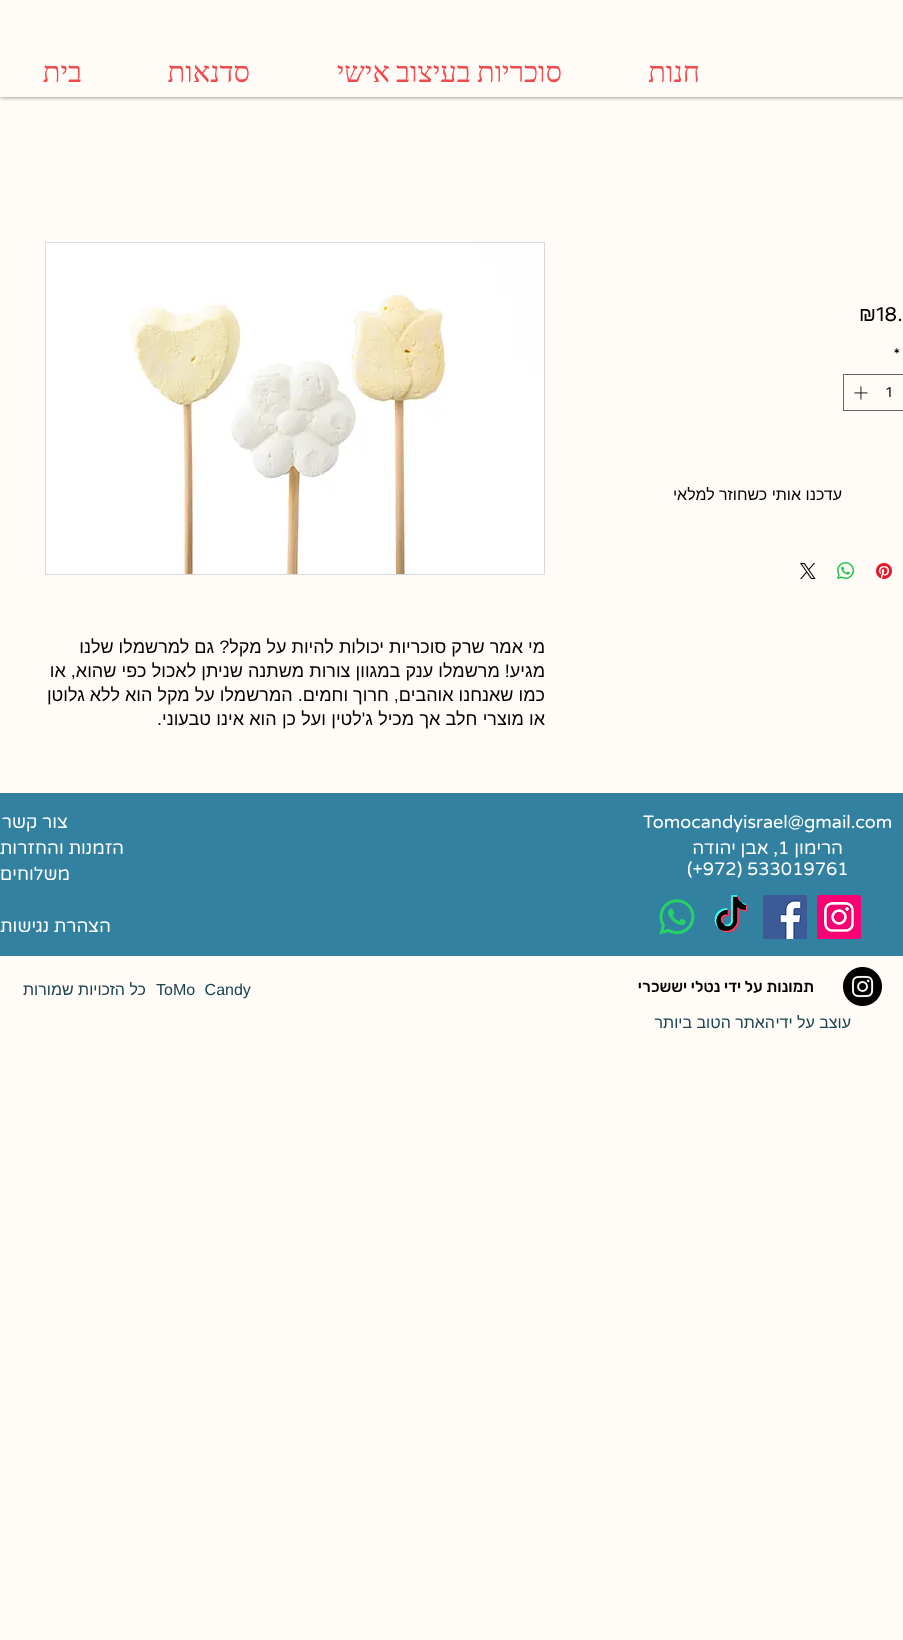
<!DOCTYPE html>
<meta charset="utf-8">
<style>body { margin: 0 } canvas { display: block }</style>
<canvas id="canvas" width="903" height="1640"></canvas>
<img id="img1" src="img_01.png" hidden>
<img id="img2" src="img_02.png" hidden>
<img id="img3" src="img_03.png" hidden>
<img id="img4" src="img_04.png" hidden>
<img id="img5" src="img_05.png" hidden>
<img id="img6" src="img_06.png" hidden>
<img id="img7" src="img_07.png" hidden>
<img id="img8" src="img_08.png" hidden>
<img id="img9" src="img_09.png" hidden>
<img id="img10" src="img_10.png" hidden>
<script>
window.onload = function () {
	const canvas = document.getElementById("canvas");
	const ctx = canvas.getContext("2d");
	ctx.miterLimit = 4;
	ctx.fontKerning = "normal";
	function txt(s, x, y) {
		ctx.fillText(s, x, y);
	}
	function fill(x, y, w, h) {
		ctx.fillRect(x, y, w, h);
	}
	function img(id, x, y, w, h) {
		ctx.drawImage(document.getElementById(id), x, y, w, h);
	}

	ctx.fillStyle = "#FFFCF7";
	fill(0, 0, 903, 1640);
	ctx.save();
	ctx.beginPath();
	ctx.rect(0, 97, 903, 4);
	ctx.clip();
	ctx.fillStyle = "rgba(0, 0, 0, 0.5)";
	ctx.filter = "blur(2.5px)";
	ctx.beginPath();
	ctx.rect(0, 0, 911, 97);
	ctx.fill();
	ctx.filter = "none";
	ctx.restore();
	ctx.strokeStyle = "#666563";
	ctx.strokeRect(843.5, 374.5, 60, 36);
	img("img1", 854, 386, 14, 14);
	img("img2", 876, 563, 16, 16);
	img("img3", 837, 562, 17, 17);
	img("img4", 800, 563, 16, 16);
	ctx.strokeStyle = "#D9D9D9";
	ctx.strokeRect(45.5, 242.5, 499, 332);
	img("img5", 46, 243, 498, 331);
	ctx.fillStyle = "#3381A1";
	fill(0, 793, 903, 163);
	img("img6", 817, 895, 44, 44);
	img("img7", 763, 895, 44, 44);
	img("img8", 714, 895, 34, 38);
	img("img9", 659, 899, 36, 36);
	img("img10", 843, 967, 39, 39);
	ctx.direction = "rtl";
	ctx.font = "29px Liberation Serif";
	ctx.fillStyle = "#EF4B4D";
	txt("חנות", 700, 82);
	ctx.wordSpacing = "-1px";
	txt("סוכריות בעיצוב אישי", 562, 82);
	ctx.wordSpacing = "0px";
	txt("סדנאות", 250, 82);
	txt("בית", 82, 82);
	ctx.direction = "ltr";
	ctx.font = "20px Spinnaker";
	ctx.fillStyle = "#000000";
	txt("18.", 876, 321);
	ctx.font = "20px Liberation Sans";
	txt("₪", 859, 321);
	ctx.font = "14px Spinnaker";
	txt("*", 893, 360);
	txt("1", 886, 397);
	ctx.direction = "rtl";
	ctx.font = "16px Liberation Sans";
	txt("עדכנו אותי כשחוזר למלאי", 842, 500);
	ctx.font = "18px Liberation Sans";
	txt("מי אמר שרק סוכריות יכולות להיות על מקל? גם למרשמלו שלנו", 545, 653);
	ctx.wordSpacing = "0.1px";
	txt("מגיע! מרשמלו ענק במגוון צורות משתנה שניתן לאכול כפי שהוא, או", 545, 677);
	ctx.wordSpacing = "0px";
	txt("כמו שאנחנו אוהבים, חרוך וחמים. המרשמלו על מקל הוא ללא גלוטן", 545, 701);
	ctx.wordSpacing = "0.25px";
	txt("או מוצרי חלב אך מכיל ג'לטין ועל כן הוא", 545, 725);
	ctx.wordSpacing = "0px";
	txt("אינו", 244, 725);
	txt("טבעוני.", 211, 725);
	ctx.direction = "ltr";
	ctx.font = "18px Varela Round";
	ctx.fillStyle = "#FFFFFF";
	txt("Tomocandyisrael@gmail.com", 643, 828);
	ctx.direction = "rtl";
	txt("צור קשר", 68, 828);
	txt("הרימון", 843, 854);
	ctx.direction = "ltr";
	txt("1", 778, 854);
	ctx.direction = "rtl";
	txt(", אבן יהודה", 778, 854);
	txt("הזמנות והחזרות", 124, 854);
	ctx.direction = "ltr";
	txt("(+972) 533019761", 687, 875);
	ctx.direction = "rtl";
	txt("משלוחים", 70, 880);
	txt("הצהרת נגישות", 111, 932);
	ctx.font = "500 16px Rubik";
	ctx.fillStyle = "#000000";
	txt("תמונות על ידי נטלי יששכרי", 814, 992);
	ctx.wordSpacing = "5px";
	ctx.direction = "ltr";
	ctx.font = "16px Liberation Sans";
	ctx.fillStyle = "#194150";
	txt("ToMo Candy", 156, 995);
	ctx.wordSpacing = "0px";
	ctx.direction = "rtl";
	txt("כל הזכויות שמורות", 146, 995);
	txt("עוצב על ידי", 851, 1028);
	txt("האתר הטוב ביותר", 775, 1028);
};
</script>
